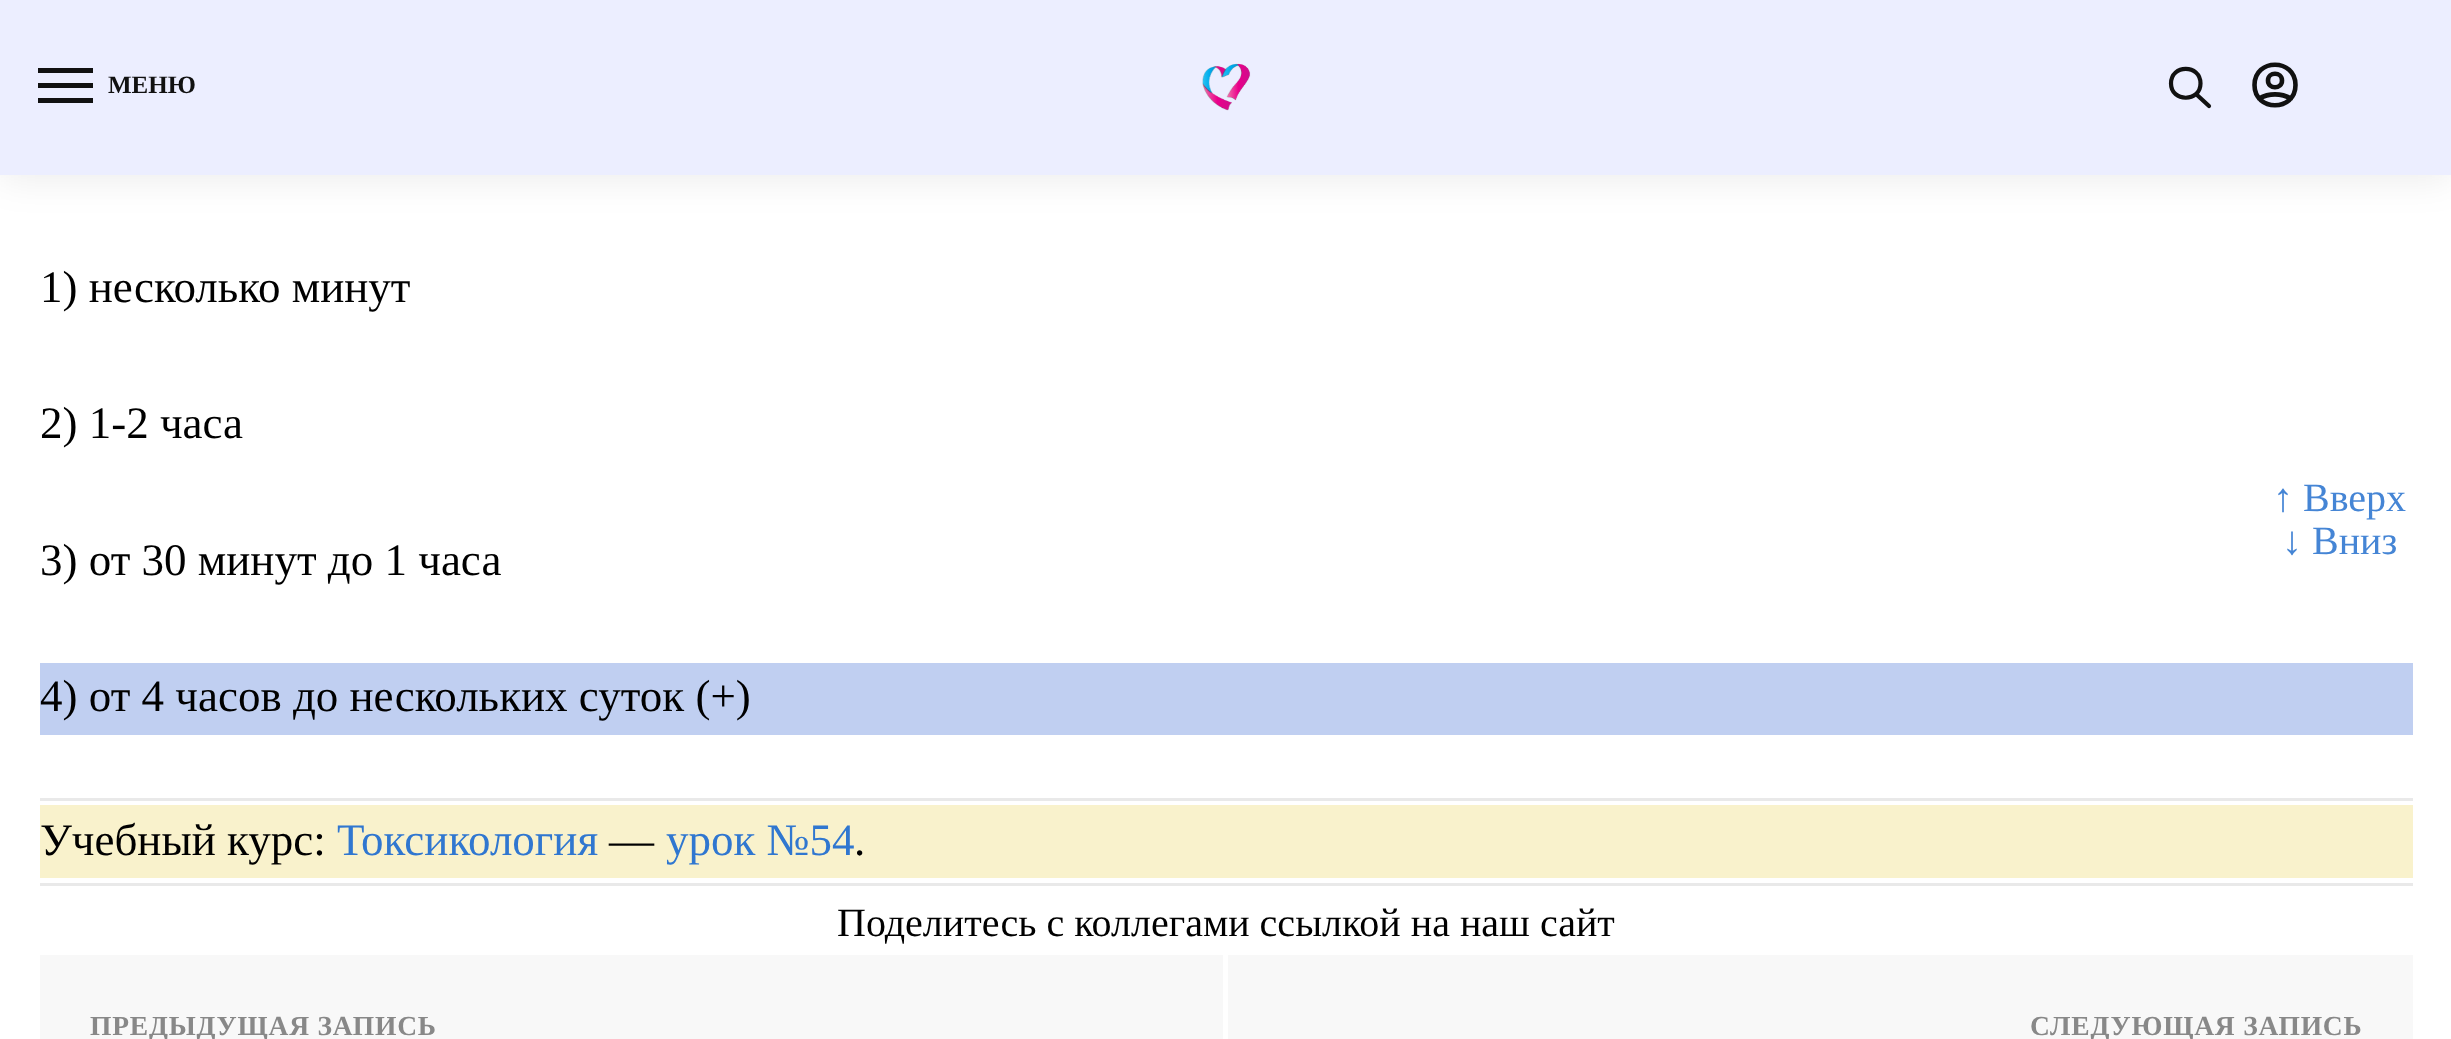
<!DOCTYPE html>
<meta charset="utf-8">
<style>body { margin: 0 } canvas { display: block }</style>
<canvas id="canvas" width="2451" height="1039"></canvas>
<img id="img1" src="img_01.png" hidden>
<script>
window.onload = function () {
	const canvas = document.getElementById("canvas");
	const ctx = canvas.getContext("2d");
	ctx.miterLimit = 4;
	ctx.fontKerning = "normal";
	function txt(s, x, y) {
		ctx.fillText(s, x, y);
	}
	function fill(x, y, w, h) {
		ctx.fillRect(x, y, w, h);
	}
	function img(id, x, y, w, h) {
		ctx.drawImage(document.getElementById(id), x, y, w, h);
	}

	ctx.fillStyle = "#FFFFFF";
	fill(0, 0, 2451, 1039);
	ctx.fillStyle = "rgba(0, 0, 0, 0.08)";
	ctx.filter = "blur(19px)";
	ctx.beginPath();
	ctx.rect(0, 3, 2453, 175);
	ctx.fill();
	ctx.filter = "none";
	ctx.fillStyle = "#ECEEFF";
	fill(0, 0, 2451, 175);
	ctx.fillStyle = "#111111";
	fill(38, 68, 55, 5);
	fill(38, 83, 55, 5);
	fill(38, 98, 55, 5);
	img("img1", 1202, 63, 49, 48);
	ctx.beginPath();
	ctx.moveTo(2209, 106);
	ctx.lineTo(2196, 94);
	ctx.moveTo(2200.5, 83.5);
	ctx.bezierCurveTo(2200.5, 102.5, 2171, 102.5, 2171, 83.5);
	ctx.bezierCurveTo(2171, 64, 2200.5, 64, 2200.5, 83.5);
	ctx.closePath();
	ctx.strokeStyle = "#111111";
	ctx.lineWidth = 4.2;
	ctx.lineCap = "round";
	ctx.lineJoin = "round";
	ctx.stroke();
	ctx.beginPath();
	ctx.moveTo(2259, 98.5);
	ctx.bezierCurveTo(2269, 93, 2281, 93, 2291, 98.5);
	ctx.moveTo(2282, 80.5);
	ctx.bezierCurveTo(2282, 89.5, 2268, 89.5, 2268, 80.5);
	ctx.bezierCurveTo(2268, 71.5, 2282, 71.5, 2282, 80.5);
	ctx.closePath();
	ctx.moveTo(2295.5, 85);
	ctx.bezierCurveTo(2295.5, 112, 2254.5, 112, 2254.5, 85);
	ctx.bezierCurveTo(2254.5, 58, 2295.5, 58, 2295.5, 85);
	ctx.closePath();
	ctx.lineWidth = 4.6;
	ctx.stroke();
	ctx.fillStyle = "#C0CFF1";
	fill(40, 663, 2373, 72);
	ctx.fillStyle = "#E9E9E9";
	fill(40, 798, 2373, 3);
	ctx.fillStyle = "#F9F2CC";
	fill(40, 805, 2373, 73);
	ctx.fillStyle = "#E9E9E9";
	fill(40, 883, 2373, 3);
	ctx.fillStyle = "#F8F8F8";
	fill(40, 955, 2373, 84);
	ctx.fillStyle = "#FFFFFF";
	fill(1223, 955, 5, 84);
	ctx.font = "bold 25px Liberation Serif";
	ctx.fillStyle = "#111111";
	txt("МЕНЮ", 108, 93);
	ctx.font = "45px Liberation Serif";
	ctx.fillStyle = "#000000";
	txt("1) несколько минут", 40, 302);
	txt("2) 1-2 часа", 40, 438);
	txt("3) от 30 минут до 1 часа", 40, 575);
	txt("4) от 4 часов до нескольких суток (+)", 40, 711);
	txt("Учебный курс:", 40, 855);
	ctx.fillStyle = "#3077D0";
	txt("Токсикология", 337, 855);
	ctx.fillStyle = "#000000";
	txt("—", 609, 855);
	ctx.fillStyle = "#3077D0";
	txt("урок №54", 666, 855);
	ctx.fillStyle = "#000000";
	txt(".", 854, 855);
	ctx.font = "40px Liberation Serif";
	txt("Поделитесь с коллегами ссылкой на наш сайт", 837, 936);
	ctx.letterSpacing = "0.8px";
	ctx.font = "bold 27.5px Liberation Serif";
	ctx.fillStyle = "#888888";
	txt("ПРЕДЫДУЩАЯ ЗАПИСЬ", 90, 1035);
	txt("СЛЕДУЮЩАЯ ЗАПИСЬ", 2030, 1035);
	ctx.letterSpacing = "0px";
	ctx.font = "40px Liberation Serif";
	ctx.fillStyle = "#4585D5";
	txt("↑ Вверх", 2273, 511);
	txt("↓ Вниз", 2282, 554);
};
</script>
